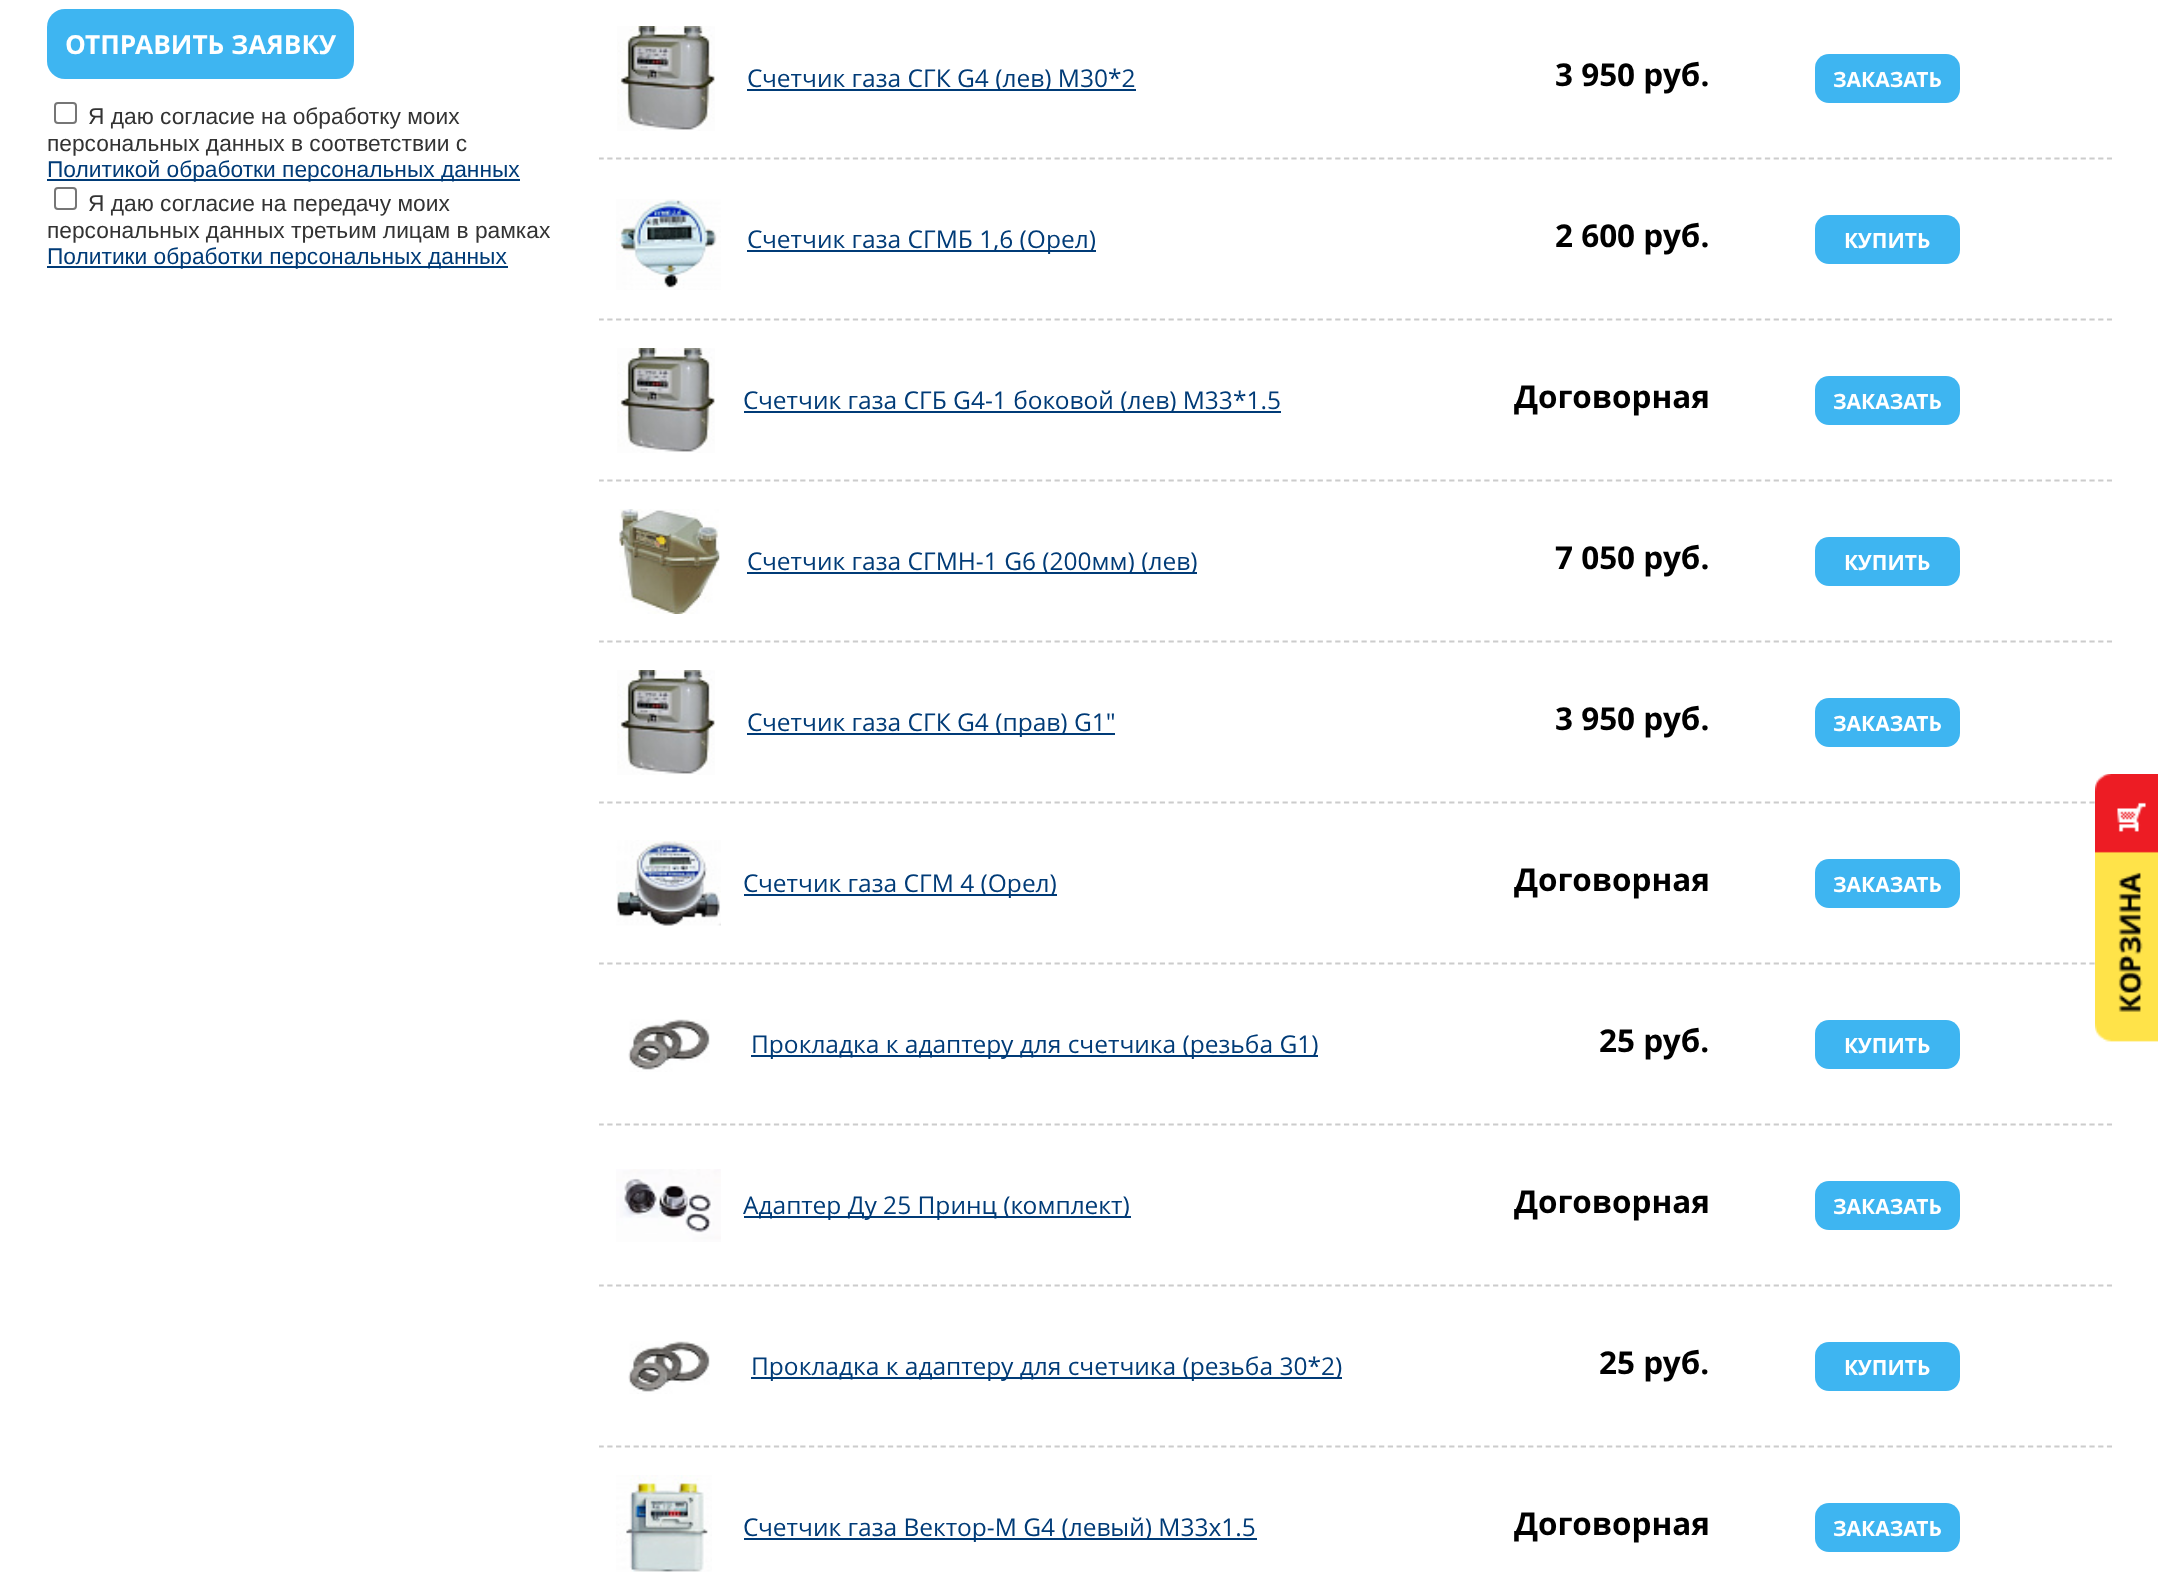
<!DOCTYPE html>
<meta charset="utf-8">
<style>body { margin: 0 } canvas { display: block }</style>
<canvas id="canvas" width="2158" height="1588"></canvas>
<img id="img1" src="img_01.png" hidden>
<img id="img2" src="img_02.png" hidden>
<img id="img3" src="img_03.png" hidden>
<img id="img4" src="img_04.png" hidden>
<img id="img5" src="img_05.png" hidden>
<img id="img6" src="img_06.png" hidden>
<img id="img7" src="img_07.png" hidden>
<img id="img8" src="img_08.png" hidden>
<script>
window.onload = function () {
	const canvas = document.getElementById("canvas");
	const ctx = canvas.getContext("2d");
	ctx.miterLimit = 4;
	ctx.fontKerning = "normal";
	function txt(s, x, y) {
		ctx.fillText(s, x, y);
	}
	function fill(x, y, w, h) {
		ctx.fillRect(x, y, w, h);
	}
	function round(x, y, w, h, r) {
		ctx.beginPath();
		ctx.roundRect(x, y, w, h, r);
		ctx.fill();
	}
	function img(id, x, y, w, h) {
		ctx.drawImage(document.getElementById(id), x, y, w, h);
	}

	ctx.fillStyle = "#FFFFFF";
	fill(0, 0, 2158, 1588);
	ctx.fillStyle = "#3EB5F1";
	round(47, 9, 307, 70, 18);
	ctx.beginPath();
	ctx.roundRect(55, 103, 21, 20, 3);
	ctx.strokeStyle = "#767676";
	ctx.lineWidth = 2;
	ctx.stroke();
	ctx.fillStyle = "#003B77";
	fill(47, 179, 473, 2);
	ctx.beginPath();
	ctx.roundRect(55, 188, 21, 21, 3);
	ctx.stroke();
	fill(47, 266, 461, 2);
	ctx.save();
	ctx.beginPath();
	ctx.rect(599, 0, 1513, 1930);
	ctx.clip();
	ctx.beginPath();
	ctx.moveTo(598.5, 158.5);
	ctx.lineTo(2112, 158.5);
	ctx.strokeStyle = "#CCCCCC";
	ctx.lineWidth = 1.8;
	ctx.setLineDash([5.25, 3.52]);
	ctx.stroke();
	ctx.restore();
	img("img1", 617, 26, 98, 105);
	fill(747, 89, 389, 2);
	ctx.fillStyle = "#3EB5F1";
	round(1815, 54, 145, 49, 14);
	ctx.save();
	ctx.beginPath();
	ctx.rect(599, 0, 1513, 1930);
	ctx.clip();
	ctx.beginPath();
	ctx.moveTo(598.5, 319.5);
	ctx.lineTo(2112, 319.5);
	ctx.strokeStyle = "#CCCCCC";
	ctx.lineWidth = 1.8;
	ctx.setLineDash([5.25, 3.52]);
	ctx.stroke();
	ctx.restore();
	img("img2", 616, 199, 105, 91);
	ctx.fillStyle = "#003B77";
	fill(747, 250, 349, 2);
	ctx.fillStyle = "#3EB5F1";
	round(1815, 215, 145, 49, 14);
	ctx.save();
	ctx.beginPath();
	ctx.rect(599, 0, 1513, 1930);
	ctx.clip();
	ctx.beginPath();
	ctx.moveTo(598.5, 480.5);
	ctx.lineTo(2112, 480.5);
	ctx.strokeStyle = "#CCCCCC";
	ctx.lineWidth = 1.8;
	ctx.setLineDash([5.25, 3.52]);
	ctx.stroke();
	ctx.restore();
	img("img1", 617, 348, 98, 105);
	ctx.fillStyle = "#003B77";
	fill(744, 411, 537, 2);
	ctx.fillStyle = "#3EB5F1";
	round(1815, 376, 145, 49, 14);
	ctx.save();
	ctx.beginPath();
	ctx.rect(599, 0, 1513, 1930);
	ctx.clip();
	ctx.beginPath();
	ctx.moveTo(598.5, 641.5);
	ctx.lineTo(2112, 641.5);
	ctx.strokeStyle = "#CCCCCC";
	ctx.lineWidth = 1.8;
	ctx.setLineDash([5.25, 3.52]);
	ctx.stroke();
	ctx.restore();
	img("img3", 619, 509, 101, 105);
	ctx.fillStyle = "#003B77";
	fill(747, 572, 450, 2);
	ctx.fillStyle = "#3EB5F1";
	round(1815, 537, 145, 49, 14);
	ctx.save();
	ctx.beginPath();
	ctx.rect(599, 0, 1513, 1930);
	ctx.clip();
	ctx.beginPath();
	ctx.moveTo(598.5, 802.5);
	ctx.lineTo(2112, 802.5);
	ctx.strokeStyle = "#CCCCCC";
	ctx.lineWidth = 1.8;
	ctx.setLineDash([5.25, 3.52]);
	ctx.stroke();
	ctx.restore();
	img("img1", 617, 670, 98, 105);
	ctx.fillStyle = "#003B77";
	fill(747, 733, 368, 2);
	ctx.fillStyle = "#3EB5F1";
	round(1815, 698, 145, 49, 14);
	ctx.save();
	ctx.beginPath();
	ctx.rect(599, 0, 1513, 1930);
	ctx.clip();
	ctx.beginPath();
	ctx.moveTo(598.5, 963.5);
	ctx.lineTo(2112, 963.5);
	ctx.strokeStyle = "#CCCCCC";
	ctx.lineWidth = 1.8;
	ctx.setLineDash([5.25, 3.52]);
	ctx.stroke();
	ctx.restore();
	img("img4", 616, 840, 105, 86);
	ctx.fillStyle = "#003B77";
	fill(744, 894, 313, 2);
	ctx.fillStyle = "#3EB5F1";
	round(1815, 859, 145, 49, 14);
	ctx.save();
	ctx.beginPath();
	ctx.rect(599, 0, 1513, 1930);
	ctx.clip();
	ctx.beginPath();
	ctx.moveTo(598.5, 1124.5);
	ctx.lineTo(2112, 1124.5);
	ctx.strokeStyle = "#CCCCCC";
	ctx.lineWidth = 1.8;
	ctx.setLineDash([5.25, 3.52]);
	ctx.stroke();
	ctx.restore();
	img("img5", 628, 1019, 82, 53);
	ctx.fillStyle = "#003B77";
	fill(751, 1055, 567, 2);
	ctx.fillStyle = "#3EB5F1";
	round(1815, 1020, 145, 49, 14);
	ctx.save();
	ctx.beginPath();
	ctx.rect(599, 0, 1513, 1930);
	ctx.clip();
	ctx.beginPath();
	ctx.moveTo(598.5, 1285.5);
	ctx.lineTo(2112, 1285.5);
	ctx.strokeStyle = "#CCCCCC";
	ctx.lineWidth = 1.8;
	ctx.setLineDash([5.25, 3.52]);
	ctx.stroke();
	ctx.restore();
	img("img6", 616, 1169, 105, 73);
	ctx.fillStyle = "#003B77";
	fill(744, 1216, 387, 2);
	ctx.fillStyle = "#3EB5F1";
	round(1815, 1181, 145, 49, 14);
	ctx.save();
	ctx.beginPath();
	ctx.rect(599, 0, 1513, 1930);
	ctx.clip();
	ctx.beginPath();
	ctx.moveTo(598.5, 1446.5);
	ctx.lineTo(2112, 1446.5);
	ctx.strokeStyle = "#CCCCCC";
	ctx.lineWidth = 1.8;
	ctx.setLineDash([5.25, 3.52]);
	ctx.stroke();
	ctx.restore();
	img("img5", 628, 1341, 82, 53);
	ctx.fillStyle = "#003B77";
	fill(751, 1377, 591, 2);
	ctx.fillStyle = "#3EB5F1";
	round(1815, 1342, 145, 49, 14);
	img("img7", 616, 1475, 96, 97);
	ctx.fillStyle = "#003B77";
	fill(744, 1538, 513, 2);
	ctx.fillStyle = "#3EB5F1";
	round(1815, 1503, 145, 49, 14);
	img("img8", 2095, 774, 63, 268);
	ctx.font = "bold 26.25px Open Sans";
	ctx.fillStyle = "#FFFFFF";
	txt("ОТПРАВИТЬ ЗАЯВКУ", 65, 54);
	ctx.font = "22.75px Liberation Sans";
	ctx.fillStyle = "#333333";
	txt("Я даю согласие на обработку моих", 88, 124);
	txt("персональных данных в соответствии с", 47, 151);
	ctx.fillStyle = "#003B77";
	txt("Политикой обработки персональных данных", 47, 177);
	ctx.fillStyle = "#333333";
	txt("Я даю согласие на передачу моих", 88, 211);
	txt("персональных данных третьим лицам в рамках", 47, 238);
	ctx.fillStyle = "#003B77";
	txt("Политики обработки персональных данных", 47, 264);
	ctx.font = "24.5px Open Sans";
	txt("Счетчик газа СГК G4 (лев) М30*2", 747, 87);
	ctx.font = "bold 31.5px Open Sans";
	ctx.fillStyle = "#000000";
	txt("3 950 руб.", 1555, 86);
	ctx.font = "bold 21px Open Sans";
	ctx.fillStyle = "#FFFFFF";
	txt("ЗАКАЗАТЬ", 1833, 87);
	ctx.font = "24.5px Open Sans";
	ctx.fillStyle = "#003B77";
	txt("Счетчик газа СГМБ 1,6 (Орел)", 747, 248);
	ctx.font = "bold 31.5px Open Sans";
	ctx.fillStyle = "#000000";
	txt("2 600 руб.", 1555, 247);
	ctx.font = "bold 21px Open Sans";
	ctx.fillStyle = "#FFFFFF";
	txt("КУПИТЬ", 1844, 248);
	ctx.font = "24.5px Open Sans";
	ctx.fillStyle = "#003B77";
	txt("Счетчик газа СГБ G4-1 боковой (лев) М33*1.5", 743, 409);
	ctx.font = "bold 31.5px Open Sans";
	ctx.fillStyle = "#000000";
	txt("Договорная", 1514, 408);
	ctx.font = "bold 21px Open Sans";
	ctx.fillStyle = "#FFFFFF";
	txt("ЗАКАЗАТЬ", 1833, 409);
	ctx.font = "24.5px Open Sans";
	ctx.fillStyle = "#003B77";
	txt("Счетчик газа СГМН-1 G6 (200мм) (лев)", 747, 570);
	ctx.font = "bold 31.5px Open Sans";
	ctx.fillStyle = "#000000";
	txt("7 050 руб.", 1555, 569);
	ctx.font = "bold 21px Open Sans";
	ctx.fillStyle = "#FFFFFF";
	txt("КУПИТЬ", 1844, 570);
	ctx.font = "24.5px Open Sans";
	ctx.fillStyle = "#003B77";
	txt("Счетчик газа СГК G4 (прав) G1\"", 747, 731);
	ctx.font = "bold 31.5px Open Sans";
	ctx.fillStyle = "#000000";
	txt("3 950 руб.", 1555, 730);
	ctx.font = "bold 21px Open Sans";
	ctx.fillStyle = "#FFFFFF";
	txt("ЗАКАЗАТЬ", 1833, 731);
	ctx.font = "24.5px Open Sans";
	ctx.fillStyle = "#003B77";
	txt("Счетчик газа СГМ 4 (Орел)", 743, 892);
	ctx.font = "bold 31.5px Open Sans";
	ctx.fillStyle = "#000000";
	txt("Договорная", 1514, 891);
	ctx.font = "bold 21px Open Sans";
	ctx.fillStyle = "#FFFFFF";
	txt("ЗАКАЗАТЬ", 1833, 892);
	ctx.font = "24.5px Open Sans";
	ctx.fillStyle = "#003B77";
	txt("Прокладка к адаптеру для счетчика (резьба G1)", 751, 1053);
	ctx.font = "bold 31.5px Open Sans";
	ctx.fillStyle = "#000000";
	txt("25 руб.", 1599, 1052);
	ctx.font = "bold 21px Open Sans";
	ctx.fillStyle = "#FFFFFF";
	txt("КУПИТЬ", 1844, 1053);
	ctx.font = "24.5px Open Sans";
	ctx.fillStyle = "#003B77";
	txt("Адаптер Ду 25 Принц (комплект)", 743, 1214);
	ctx.font = "bold 31.5px Open Sans";
	ctx.fillStyle = "#000000";
	txt("Договорная", 1514, 1213);
	ctx.font = "bold 21px Open Sans";
	ctx.fillStyle = "#FFFFFF";
	txt("ЗАКАЗАТЬ", 1833, 1214);
	ctx.font = "24.5px Open Sans";
	ctx.fillStyle = "#003B77";
	txt("Прокладка к адаптеру для счетчика (резьба 30*2)", 751, 1375);
	ctx.font = "bold 31.5px Open Sans";
	ctx.fillStyle = "#000000";
	txt("25 руб.", 1599, 1374);
	ctx.font = "bold 21px Open Sans";
	ctx.fillStyle = "#FFFFFF";
	txt("КУПИТЬ", 1844, 1375);
	ctx.font = "24.5px Open Sans";
	ctx.fillStyle = "#003B77";
	txt("Счетчик газа Вектор-М G4 (левый) М33х1.5", 743, 1536);
	ctx.font = "bold 31.5px Open Sans";
	ctx.fillStyle = "#000000";
	txt("Договорная", 1514, 1535);
	ctx.font = "bold 21px Open Sans";
	ctx.fillStyle = "#FFFFFF";
	txt("ЗАКАЗАТЬ", 1833, 1536);
};
</script>
